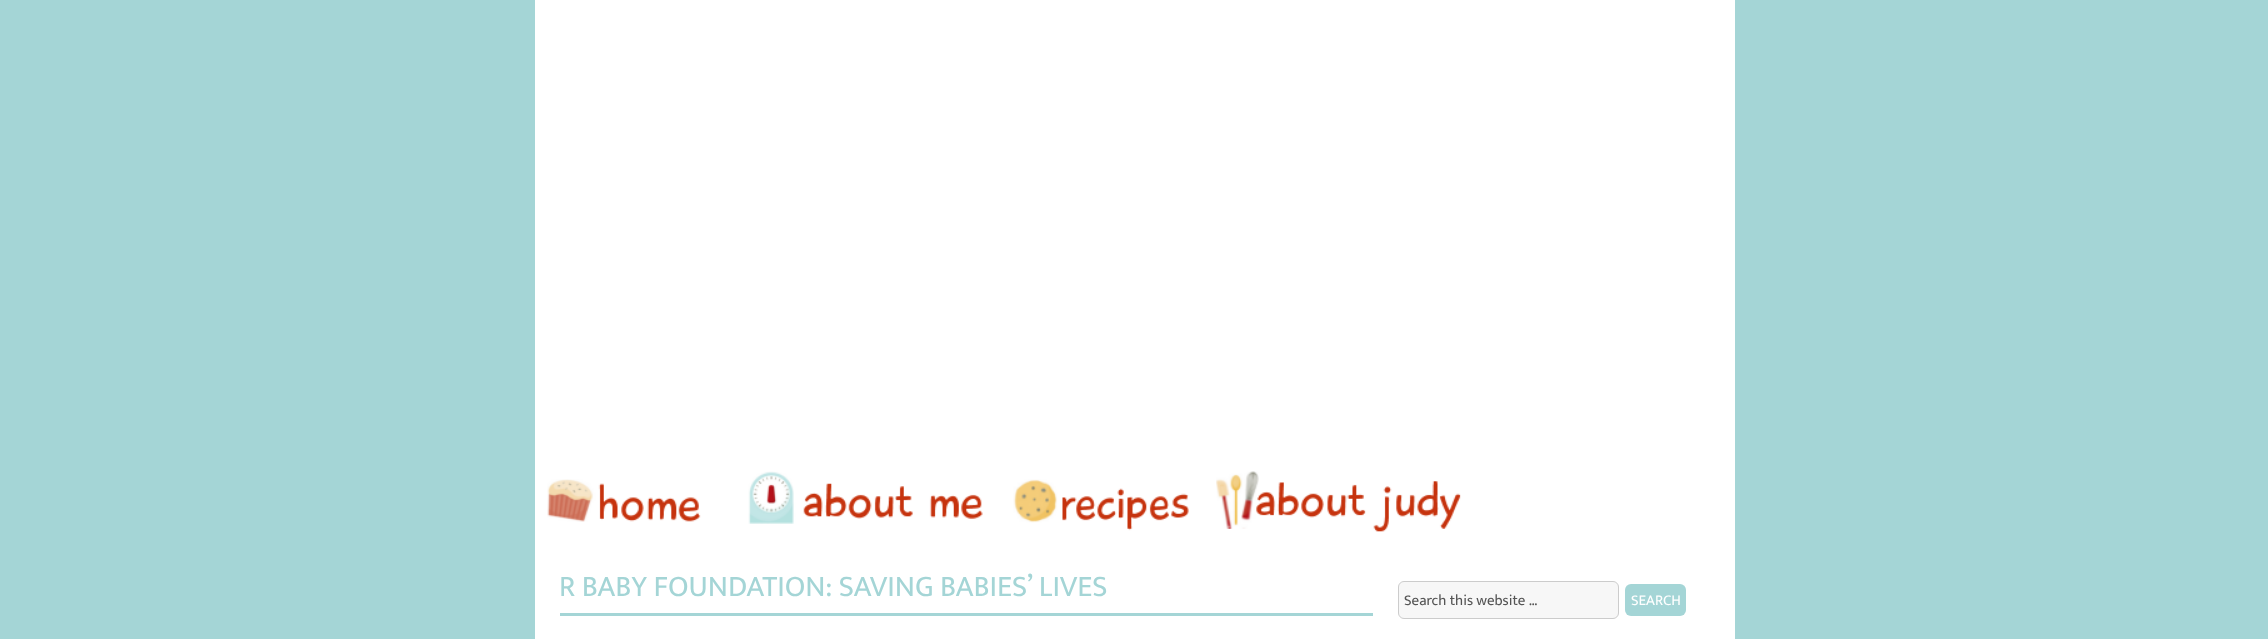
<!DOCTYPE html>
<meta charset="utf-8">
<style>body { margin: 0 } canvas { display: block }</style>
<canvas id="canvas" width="2268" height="639"></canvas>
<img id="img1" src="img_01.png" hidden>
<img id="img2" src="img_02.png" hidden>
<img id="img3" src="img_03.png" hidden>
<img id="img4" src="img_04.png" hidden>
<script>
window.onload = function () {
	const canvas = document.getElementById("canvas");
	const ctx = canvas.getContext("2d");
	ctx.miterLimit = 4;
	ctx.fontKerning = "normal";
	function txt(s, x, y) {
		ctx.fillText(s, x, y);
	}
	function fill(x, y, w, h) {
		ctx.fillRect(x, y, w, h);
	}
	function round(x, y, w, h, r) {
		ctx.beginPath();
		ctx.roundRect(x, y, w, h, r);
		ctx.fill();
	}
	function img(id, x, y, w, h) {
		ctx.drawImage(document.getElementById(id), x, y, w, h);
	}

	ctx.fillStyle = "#A4D5D6";
	fill(0, 0, 2268, 639);
	ctx.fillStyle = "#FFFFFF";
	fill(535, 0, 1200, 639);
	img("img1", 547, 479, 154, 43);
	img("img2", 748, 471, 235, 53);
	img("img3", 1013, 479, 176, 52);
	img("img4", 1216, 471, 245, 61);
	ctx.fillStyle = "#A4D5D6";
	fill(560, 613, 813, 3);
	ctx.fillStyle = "#F7F7F7";
	ctx.beginPath();
	ctx.roundRect(1398.5, 581.5, 220, 37, 5.5);
	ctx.fill();
	ctx.strokeStyle = "#CCCCCC";
	ctx.stroke();
	ctx.fillStyle = "#A4D5D6";
	round(1625, 584, 61, 32, 6);
	ctx.font = "30px Ek Mukta";
	txt("R BABY FOUNDATION: SAVING BABIES’ LIVES", 559, 596);
	ctx.font = "15px Ek Mukta";
	ctx.fillStyle = "#555555";
	txt("Search this website …", 1404, 605);
	ctx.fillStyle = "#FFFFFF";
	txt("SEARCH", 1631, 605);
};
</script>
